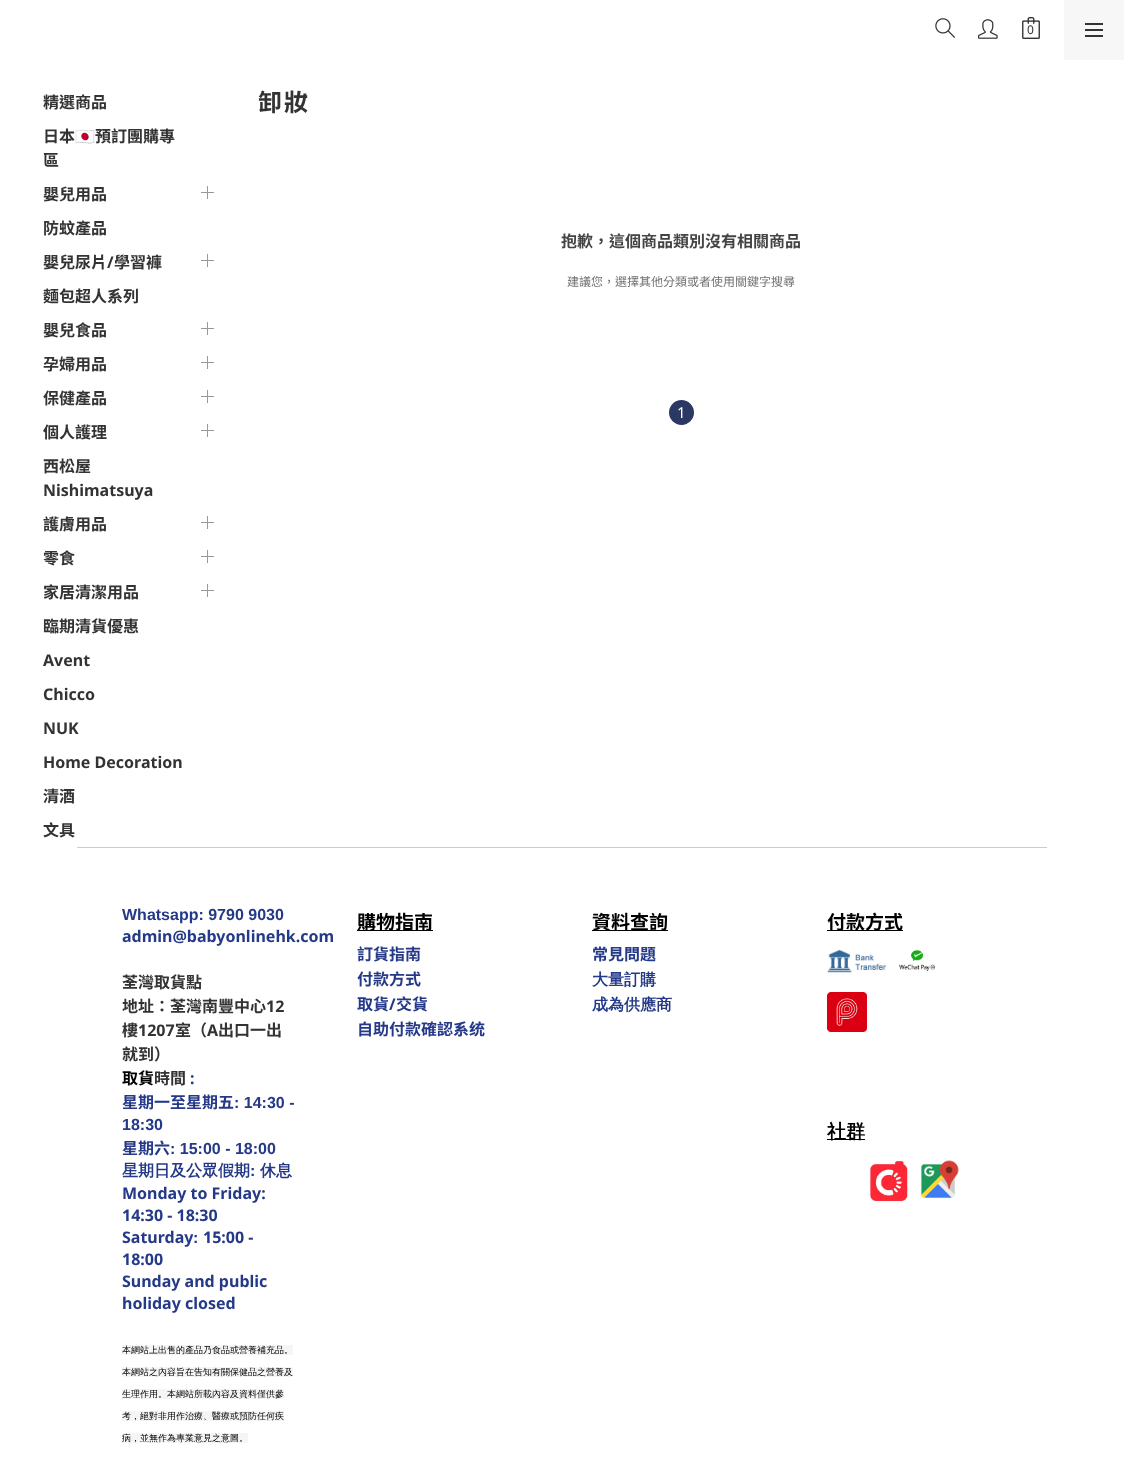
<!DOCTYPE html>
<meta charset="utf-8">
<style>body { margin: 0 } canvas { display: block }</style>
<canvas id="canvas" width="1124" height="1482"></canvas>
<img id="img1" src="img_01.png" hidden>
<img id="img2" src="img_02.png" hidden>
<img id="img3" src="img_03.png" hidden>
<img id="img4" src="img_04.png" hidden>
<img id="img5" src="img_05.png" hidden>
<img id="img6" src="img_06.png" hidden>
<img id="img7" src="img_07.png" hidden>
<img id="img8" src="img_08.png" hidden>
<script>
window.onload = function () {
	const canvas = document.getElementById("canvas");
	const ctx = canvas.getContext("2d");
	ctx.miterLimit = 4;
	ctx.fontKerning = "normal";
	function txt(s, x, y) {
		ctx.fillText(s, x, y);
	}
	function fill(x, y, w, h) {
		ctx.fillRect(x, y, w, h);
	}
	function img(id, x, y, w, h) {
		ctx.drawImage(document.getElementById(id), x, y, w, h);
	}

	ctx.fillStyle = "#FFFFFF";
	fill(0, 0, 1124, 1482);
	img("img1", 935, 18, 20, 20);
	img("img2", 978, 19, 20, 20);
	img("img3", 1022, 17, 18, 22);
	ctx.fillStyle = "#F7F7F7";
	fill(1064, 0, 60, 60);
	ctx.fillStyle = "#333333";
	fill(1085, 29, 18, 2);
	fill(1085, 23, 18, 2);
	fill(1085, 35, 18, 2);
	ctx.fillStyle = "#999999";
	fill(201, 192, 13, 1);
	fill(207, 186, 1, 13);
	fill(201, 260, 13, 1);
	fill(207, 254, 1, 13);
	fill(201, 328, 13, 1);
	fill(207, 322, 1, 13);
	fill(201, 362, 13, 1);
	fill(207, 356, 1, 13);
	fill(201, 396, 13, 1);
	fill(207, 390, 1, 13);
	fill(201, 430, 13, 1);
	fill(207, 424, 1, 13);
	fill(201, 522, 13, 1);
	fill(207, 516, 1, 13);
	fill(201, 556, 13, 1);
	fill(207, 550, 1, 13);
	fill(201, 590, 13, 1);
	fill(207, 584, 1, 13);
	ctx.fillStyle = "#2B3864";
	ctx.beginPath();
	ctx.arc(681.5, 412.5, 12.5, 0, Math.PI * 2);
	ctx.fill();
	ctx.fillStyle = "#CCCCCC";
	fill(77, 847, 970, 1);
	ctx.fillStyle = "#F5F5F5";
	fill(122, 1345, 171, 10);
	fill(122, 1367, 171, 10);
	fill(122, 1389, 162, 10);
	fill(122, 1411, 162, 10);
	fill(122, 1433, 126, 10);
	ctx.fillStyle = "#000000";
	fill(357, 930, 76, 1);
	fill(592, 930, 76, 1);
	fill(827, 930, 76, 1);
	img("img4", 827, 949, 60, 24);
	img("img5", 899, 949, 37, 22);
	img("img6", 827, 992, 40, 40);
	fill(827, 1139, 38, 1);
	img("img7", 869, 1160, 39, 43);
	img("img8", 920, 1160, 39, 39);
	ctx.font = "12px Noto Sans";
	ctx.fillStyle = "#333333";
	txt("0", 1027, 34);
	ctx.font = "bold 16px Noto Sans TC";
	txt("精選商品", 43, 108);
	txt("日本", 43, 142);
	ctx.font = "bold 16px Noto Color Emoji";
	txt("🇯🇵", 75, 142);
	ctx.font = "bold 16px Noto Sans TC";
	txt("預訂團購專", 95, 142);
	txt("區", 43, 166);
	txt("嬰兒用品", 43, 200);
	txt("防蚊產品", 43, 234);
	txt("嬰兒尿片", 43, 268);
	ctx.font = "bold 16px Noto Sans";
	txt("/", 107, 268);
	ctx.font = "bold 16px Noto Sans TC";
	txt("學習褲", 114, 268);
	txt("麵包超人系列", 43, 302);
	txt("嬰兒食品", 43, 336);
	txt("孕婦用品", 43, 370);
	txt("保健產品", 43, 404);
	txt("個人護理", 43, 438);
	txt("西松屋", 43, 472);
	ctx.font = "bold 16px Noto Sans";
	txt("Nishimatsuya", 43, 496);
	ctx.font = "bold 16px Noto Sans TC";
	txt("護膚用品", 43, 530);
	txt("零食", 43, 564);
	txt("家居清潔用品", 43, 598);
	txt("臨期清貨優惠", 43, 632);
	ctx.font = "bold 16px Noto Sans";
	txt("Avent", 43, 666);
	txt("Chicco", 43, 700);
	txt("NUK", 43, 734);
	txt("Home Decoration", 43, 768);
	ctx.font = "bold 16px Noto Sans TC";
	txt("清酒", 43, 802);
	txt("文具", 43, 836);
	ctx.letterSpacing = "2px";
	ctx.font = "bold 24px Noto Sans TC";
	txt("卸妝", 258, 111);
	ctx.letterSpacing = "0px";
	ctx.font = "bold 16px Noto Sans TC";
	ctx.fillStyle = "#444444";
	txt("抱歉，這個商品類別沒有相關商品", 561, 247);
	ctx.font = "12px Noto Sans TC";
	ctx.fillStyle = "#737373";
	txt("建議您，選擇其他分類或者使用關鍵字搜尋", 567, 286);
	ctx.font = "15px Noto Sans";
	ctx.fillStyle = "#FFFFFF";
	txt("1", 677, 418);
	ctx.font = "bold 16px Liberation Sans";
	ctx.fillStyle = "#243988";
	txt("Whatsapp: 9790 9030", 122, 920);
	ctx.font = "bold 16px Noto Sans";
	txt("admin@babyonlinehk.com", 122, 942);
	ctx.font = "bold 16px Noto Sans TC";
	ctx.fillStyle = "#333333";
	txt("荃灣取貨點", 122, 988);
	txt("地址：荃灣南豐中心", 122, 1012);
	ctx.font = "bold 16px Noto Sans";
	txt("12", 266, 1012);
	ctx.font = "bold 16px Noto Sans TC";
	txt("樓", 122, 1036);
	ctx.font = "bold 16px Noto Sans";
	txt("1207", 138, 1036);
	ctx.font = "bold 16px Noto Sans TC";
	txt("室（", 175, 1036);
	ctx.font = "bold 16px Noto Sans";
	txt("A", 207, 1036);
	ctx.font = "bold 16px Noto Sans TC";
	txt("出口一出", 218, 1036);
	txt("就到）", 122, 1060);
	ctx.fillStyle = "#000000";
	txt("取貨", 122, 1084);
	ctx.fillStyle = "#333333";
	txt("時間", 154, 1084);
	ctx.font = "bold 16px Noto Sans";
	ctx.fillStyle = "#243988";
	txt(":", 190, 1084);
	ctx.font = "bold 16px Noto Sans TC";
	txt("星期一至星期五", 122, 1108);
	ctx.font = "bold 16px Liberation Sans";
	txt(": 14:30 -", 234, 1108);
	txt("18:30", 122, 1130);
	ctx.font = "bold 16px Noto Sans TC";
	txt("星期六", 122, 1154);
	ctx.font = "bold 16px Liberation Sans";
	txt(": 15:00 - 18:00", 170, 1154);
	ctx.font = "bold 16px WenQuanYi Zen Hei";
	txt("星期日及公眾假期", 122, 1176);
	ctx.font = "bold 16px Liberation Sans";
	txt(":", 250, 1176);
	ctx.font = "bold 16px WenQuanYi Zen Hei";
	txt("休息", 260, 1176);
	ctx.font = "bold 16px Noto Sans";
	txt("Monday to Friday:", 122, 1199);
	txt("14:30 - 18:30", 122, 1221);
	txt("Saturday", 122, 1243);
	ctx.font = "bold 16px Liberation Sans";
	txt(":", 193, 1243);
	ctx.fillStyle = "#FFFFFF";
	fill(193, 1229, 1, 7);
	ctx.font = "bold 16px Noto Sans";
	ctx.fillStyle = "#243988";
	txt("15:00 -", 203, 1243);
	txt("18:00", 122, 1265);
	txt("Sunday and public", 122, 1287);
	txt("holiday closed", 122, 1309);
	ctx.font = "500 9px WenQuanYi Zen Hei";
	ctx.fillStyle = "#000000";
	txt("本網站上出售的產品乃食品或營養補充品。", 122, 1353);
	txt("本網站之內容旨在告知有關保健品之營養及", 122, 1375);
	txt("生理作用。本網站所載內容及資料僅供參", 122, 1397);
	txt("考，絕對非用作治療、醫療或預防任何疾", 122, 1419);
	txt("病，並無作為專業意見之意圖。", 122, 1441);
	ctx.font = "bold 19px Noto Sans TC";
	txt("購物指南", 357, 929);
	ctx.font = "bold 16px Noto Sans TC";
	ctx.fillStyle = "#243988";
	txt("訂貨指南", 357, 960);
	txt("付款方式", 357, 985);
	txt("取貨", 357, 1010);
	ctx.font = "bold 16px Noto Sans";
	txt("/", 389, 1010);
	ctx.font = "bold 16px Noto Sans TC";
	txt("交貨", 396, 1010);
	txt("自助付款確認系统", 357, 1035);
	ctx.font = "bold 19px Noto Sans TC";
	ctx.fillStyle = "#000000";
	txt("資料查詢", 592, 929);
	ctx.font = "bold 16px Noto Sans TC";
	ctx.fillStyle = "#243988";
	txt("常見問題", 592, 960);
	ctx.font = "bold 16px WenQuanYi Zen Hei";
	txt("大量訂購", 592, 985);
	txt("成為供應商", 592, 1010);
	ctx.font = "bold 19px Noto Sans TC";
	ctx.fillStyle = "#000000";
	txt("付款方式", 827, 929);
	ctx.font = "bold 19px WenQuanYi Zen Hei";
	txt("社群", 827, 1138);
};
</script>
